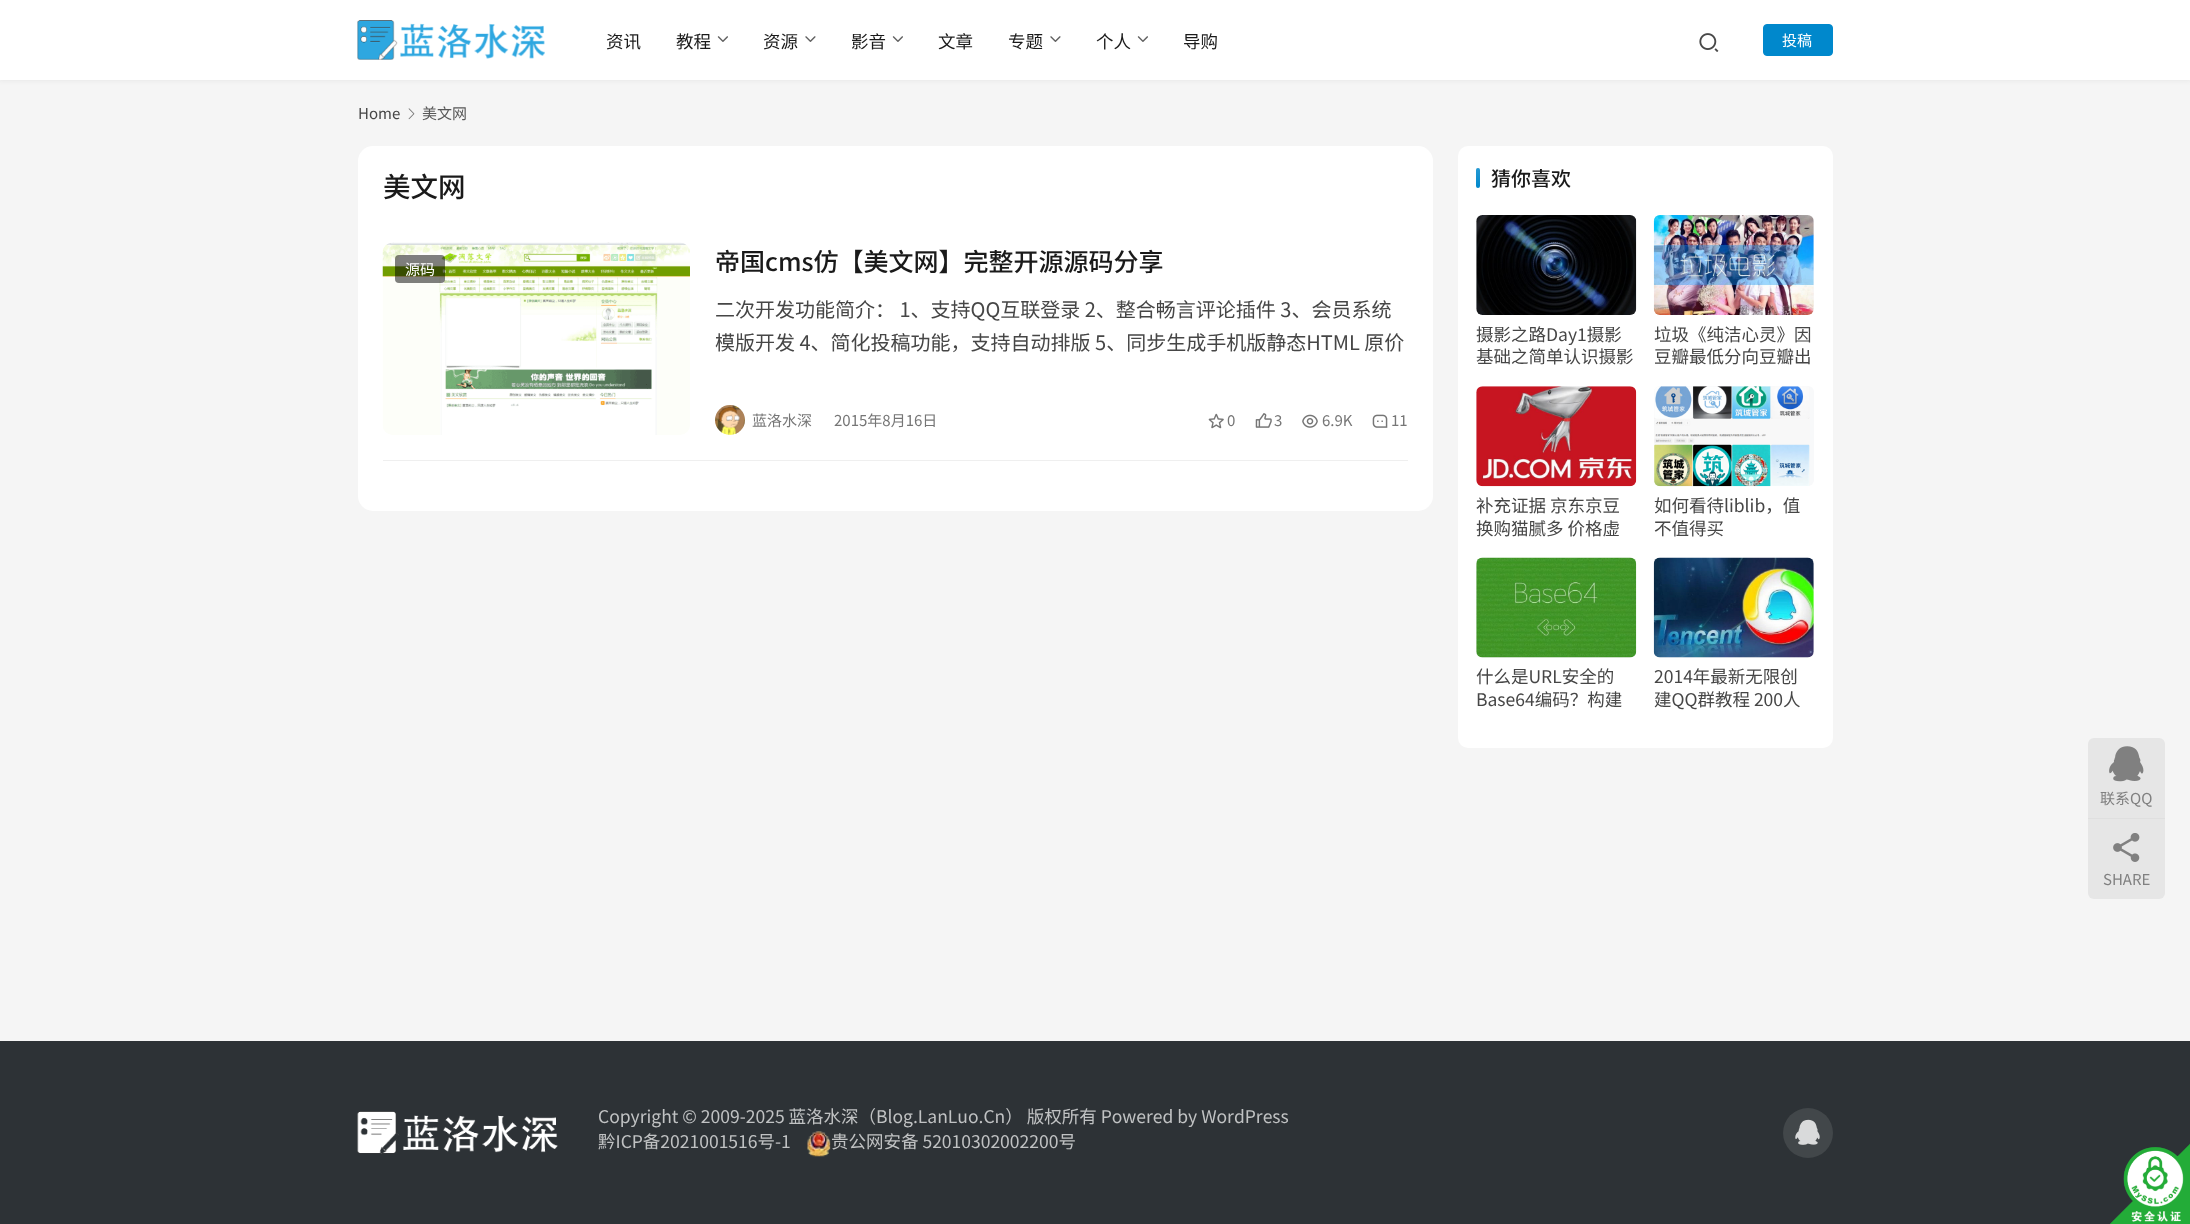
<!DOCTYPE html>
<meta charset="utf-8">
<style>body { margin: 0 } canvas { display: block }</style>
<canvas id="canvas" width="2190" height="1224"></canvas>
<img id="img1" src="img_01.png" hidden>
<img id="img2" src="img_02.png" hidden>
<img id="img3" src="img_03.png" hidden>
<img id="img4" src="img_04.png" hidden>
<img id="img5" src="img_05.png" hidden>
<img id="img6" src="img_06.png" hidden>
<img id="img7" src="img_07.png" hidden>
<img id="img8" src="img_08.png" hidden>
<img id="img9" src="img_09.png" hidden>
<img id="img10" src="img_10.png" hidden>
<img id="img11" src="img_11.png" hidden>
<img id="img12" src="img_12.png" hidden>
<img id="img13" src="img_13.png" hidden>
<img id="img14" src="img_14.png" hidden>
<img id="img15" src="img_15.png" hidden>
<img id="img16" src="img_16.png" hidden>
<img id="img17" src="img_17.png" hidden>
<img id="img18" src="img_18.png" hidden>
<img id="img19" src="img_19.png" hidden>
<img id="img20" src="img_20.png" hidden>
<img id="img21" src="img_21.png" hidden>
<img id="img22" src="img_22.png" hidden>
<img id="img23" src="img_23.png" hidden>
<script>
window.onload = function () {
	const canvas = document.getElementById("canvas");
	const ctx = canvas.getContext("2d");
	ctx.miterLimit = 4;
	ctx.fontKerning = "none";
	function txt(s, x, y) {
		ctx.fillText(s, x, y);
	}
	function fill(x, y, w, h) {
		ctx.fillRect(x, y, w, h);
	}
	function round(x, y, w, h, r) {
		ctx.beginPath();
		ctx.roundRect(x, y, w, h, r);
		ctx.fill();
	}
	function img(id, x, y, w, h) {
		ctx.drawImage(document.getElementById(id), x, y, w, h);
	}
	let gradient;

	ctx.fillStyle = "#F5F5F5";
	fill(0, 0, 2190, 1224);
	ctx.fillStyle = "rgba(26, 26, 26, 0.06)";
	ctx.filter = "blur(2px)";
	ctx.beginPath();
	ctx.rect(-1, -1, 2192, 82);
	ctx.fill();
	ctx.filter = "none";
	ctx.fillStyle = "#FFFFFF";
	fill(0, 0, 2190, 80);
	img("img1", 357, 20, 188, 40);
	img("img2", 717, 36, 11, 6);
	img("img3", 805, 36, 11, 6);
	img("img2", 892, 36, 11, 6);
	img("img3", 1050, 36, 11, 6);
	img("img2", 1137, 36, 11, 6);
	img("img4", 1699, 33, 20, 19);
	ctx.fillStyle = "#0088CC";
	ctx.beginPath();
	ctx.roundRect(1763.5, 24.5, 69, 31, 3.5);
	ctx.fill();
	ctx.strokeStyle = "#0088CC";
	ctx.stroke();
	img("img5", 408, 108, 7, 12);
	ctx.fillStyle = "#FFFFFF";
	round(358, 146, 1075, 365, 15);
	ctx.fillStyle = "#EFEFEF";
	fill(383, 460, 1025, 1);
	img("img6", 382, 242, 308, 193);
	ctx.fillStyle = "rgba(0, 0, 0, 0.5)";
	round(395, 255, 50, 28, 4);
	ctx.fillStyle = "#F5F5F5";
	ctx.beginPath();
	ctx.arc(730, 420, 15, 0, Math.PI * 2);
	ctx.fill();
	img("img7", 715, 405, 30, 30);
	img("img8", 1208, 413, 16, 16);
	img("img9", 1255, 413, 17, 15);
	img("img10", 1302, 414, 16, 14);
	img("img11", 1372, 414, 16, 14);
	ctx.fillStyle = "#FFFFFF";
	round(1458, 146, 375, 602, 10);
	ctx.fillStyle = "#0088CC";
	round(1476, 168, 4, 20, 2);
	gradient = ctx.createLinearGradient(1478, 168, 1478, 188);
	gradient.addColorStop(0, "rgba(255, 255, 255, 0.15)");
	gradient.addColorStop(1, "rgba(255, 255, 255, 0)");
	ctx.fillStyle = gradient;
	round(1476, 168, 4, 20, 2);
	ctx.fillStyle = "#F8F9FA";
	round(1476, 215, 160, 100, 6);
	img("img12", 1476, 215, 161, 100);
	round(1654, 215, 160, 100, 6);
	img("img13", 1653, 215, 161, 100);
	round(1476, 386, 160, 100, 6);
	img("img14", 1476, 386, 161, 101);
	round(1654, 386, 160, 100, 6);
	img("img15", 1654, 386, 156, 101);
	round(1476, 558, 160, 100, 6);
	img("img16", 1476, 557, 161, 101);
	round(1654, 558, 160, 100, 6);
	img("img17", 1653, 557, 161, 101);
	ctx.fillStyle = "#E6E6E6";
	ctx.beginPath();
	ctx.roundRect(2088, 738, 77, 80, [6, 6, 0, 0]);
	ctx.fill();
	img("img18", 2109, 746, 35, 36);
	ctx.fillStyle = "#DFDFDF";
	fill(2088, 818, 77, 1);
	ctx.fillStyle = "#E6E6E6";
	ctx.beginPath();
	ctx.roundRect(2088, 819, 77, 80, [0, 0, 6, 6]);
	ctx.fill();
	img("img19", 2113, 833, 27, 29);
	ctx.fillStyle = "#2D3236";
	fill(0, 1041, 2190, 183);
	img("img20", 357, 1111, 201, 43);
	img("img21", 807, 1131, 24, 26);
	img("img22", 2110, 1143, 80, 81);
	ctx.fillStyle = "#42474A";
	ctx.beginPath();
	ctx.arc(1808, 1133, 25, 0, Math.PI * 2);
	ctx.fill();
	img("img23", 1795, 1119, 25, 26);
	ctx.font = "17.5px Noto Sans CJK SC";
	ctx.fillStyle = "#1A1A1A";
	txt("资讯", 606, 48);
	txt("教程", 676, 48);
	txt("资源", 763, 48);
	txt("影音", 851, 48);
	txt("文章", 938, 48);
	txt("专题", 1008, 48);
	txt("个人", 1096, 48);
	txt("导购", 1183, 48);
	ctx.font = "15px Noto Sans CJK SC";
	ctx.fillStyle = "#FFFFFF";
	txt("投稿", 1782, 46);
	ctx.fillStyle = "#464646";
	txt("Home", 358, 119);
	ctx.fillStyle = "#575757";
	txt("美文网", 422, 119);
	ctx.font = "500 27.5px Noto Sans CJK SC";
	ctx.fillStyle = "#1A1A1A";
	txt("美文网", 383, 197);
	ctx.font = "15px Noto Sans CJK SC";
	ctx.fillStyle = "#FFFFFF";
	txt("源码", 405, 275);
	ctx.font = "500 25px Noto Sans CJK SC";
	ctx.fillStyle = "#1A1A1A";
	txt("帝国cms仿【美文网】完整开源源码分享", 715, 271);
	ctx.font = "20px Noto Sans CJK SC";
	ctx.fillStyle = "#464646";
	txt("二次开发功能简介： 1、支持QQ互联登录 2、整合畅言评论插件 3、会员系统", 715, 317);
	txt("模版开发 4、简化投稿功能，支持自动排版 5、同步生成手机版静态HTML 原价", 715, 350);
	ctx.font = "15px Noto Sans CJK SC";
	ctx.fillStyle = "#767676";
	txt("蓝洛水深", 752, 426);
	txt("2015年8月16日", 834, 426);
	txt("0", 1227, 426);
	txt("3", 1274, 426);
	txt("6.9K", 1322, 426);
	txt("11", 1391, 426);
	ctx.font = "500 20px Noto Sans CJK SC";
	ctx.fillStyle = "#1A1A1A";
	txt("猜你喜欢", 1491, 186);
	ctx.font = "17.5px Noto Sans CJK SC";
	ctx.fillStyle = "#464646";
	txt("摄影之路Day1摄影", 1476, 341);
	txt("基础之简单认识摄影", 1476, 363);
	txt("垃圾《纯洁心灵》因", 1654, 341);
	txt("豆瓣最低分向豆瓣出", 1654, 363);
	txt("补充证据 京东京豆", 1476, 512);
	txt("换购猫腻多 价格虚", 1476, 535);
	txt("如何看待liblib，值", 1654, 512);
	txt("不值得买", 1654, 535);
	txt("什么是URL安全的", 1476, 683);
	txt("Base64编码？构建", 1476, 706);
	txt("2014年最新无限创", 1654, 683);
	txt("建QQ群教程 200人", 1654, 706);
	ctx.font = "15px Noto Sans CJK SC";
	ctx.fillStyle = "#808080";
	txt("联系QQ", 2100, 804);
	txt("SHARE", 2103, 885);
	ctx.font = "17.5px Noto Sans CJK SC";
	ctx.fillStyle = "#C0C2C3";
	txt("Copyright © 2009-2025 蓝洛水深（Blog.LanLuo.Cn） 版权所有 Powered by WordPress", 598, 1123);
	txt("黔ICP备2021001516号-1", 598, 1148);
	txt("贵公网安备 52010302002200号", 831, 1148);
};
</script>
